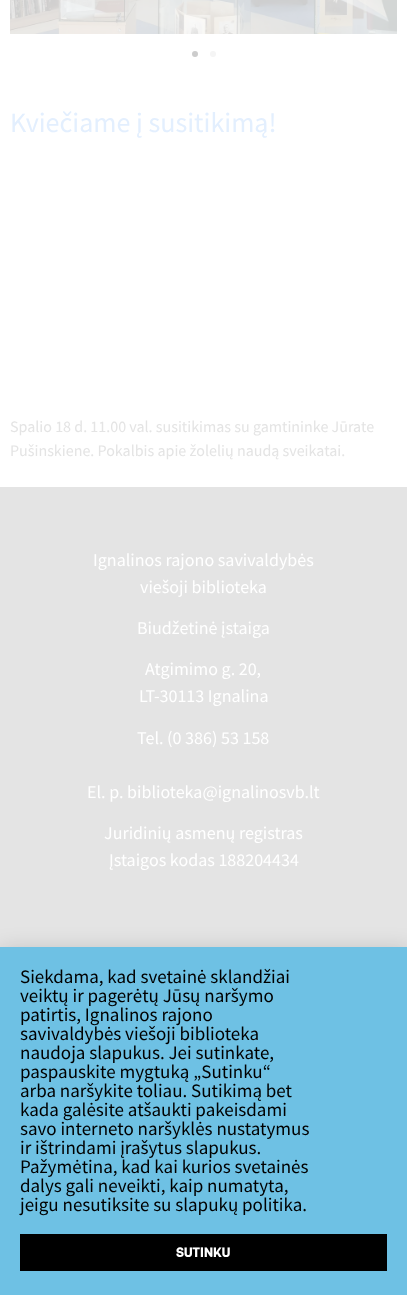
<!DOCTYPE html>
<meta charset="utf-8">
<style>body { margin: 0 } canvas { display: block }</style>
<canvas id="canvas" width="407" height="1295"></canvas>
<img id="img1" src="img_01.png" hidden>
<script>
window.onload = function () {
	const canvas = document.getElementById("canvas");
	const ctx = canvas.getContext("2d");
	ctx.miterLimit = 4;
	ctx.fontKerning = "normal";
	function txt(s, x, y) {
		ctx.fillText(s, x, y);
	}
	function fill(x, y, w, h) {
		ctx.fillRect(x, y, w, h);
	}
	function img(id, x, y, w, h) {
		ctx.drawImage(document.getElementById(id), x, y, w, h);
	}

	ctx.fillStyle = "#FFFFFF";
	fill(0, 0, 407, 1295);
	img("img1", 10, 0, 387, 34);
	ctx.fillStyle = "#CCCCCC";
	ctx.beginPath();
	ctx.arc(195, 54, 3, 0, Math.PI * 2);
	ctx.fill();
	ctx.fillStyle = "#F5F5F5";
	ctx.beginPath();
	ctx.arc(213, 54, 3, 0, Math.PI * 2);
	ctx.fill();
	ctx.fillStyle = "#E4E4E4";
	fill(0, 487, 407, 460);
	ctx.fillStyle = "rgba(0, 0, 0, 0.2)";
	ctx.filter = "blur(11.5px)";
	ctx.beginPath();
	ctx.rect(-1, 952, 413, 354);
	ctx.fill();
	ctx.filter = "none";
	ctx.fillStyle = "#6EC1E4";
	fill(0, 947, 407, 348);
	ctx.fillStyle = "#000000";
	fill(20, 1234, 367, 37);
	ctx.font = "28px Source Sans Pro";
	ctx.fillStyle = "#E3EFFE";
	txt("Kviečiame į susitikimą!", 10, 132);
	ctx.font = "16px Source Sans Pro";
	ctx.fillStyle = "#E4E4E4";
	txt("Spalio 18 d. 11.00 val. susitikimas su gamtininke Jūrate", 10, 432);
	txt("Pušinskiene. Pokalbis apie žolelių naudą sveikatai.", 10, 456);
	ctx.font = "18px Source Sans Pro";
	ctx.fillStyle = "#FFFFFF";
	txt("Ignalinos rajono savivaldybės", 93, 566);
	txt("viešoji biblioteka", 140, 593);
	txt("Biudžetinė įstaiga", 137, 634);
	txt("Atgimimo g. 20,", 145, 675);
	txt("LT-30113 Ignalina", 139, 702);
	txt("Tel. (0 386) 53 158", 137, 744);
	txt("El. p. biblioteka@ignalinosvb.lt", 87, 798);
	txt("Juridinių asmenų registras", 104, 839);
	txt("Įstaigos kodas 188204434", 109, 866);
	ctx.font = "19px Source Sans Pro";
	ctx.fillStyle = "#000000";
	txt("Siekdama, kad svetainė sklandžiai", 20, 983);
	txt("veiktų ir pagerėtų Jūsų naršymo", 20, 1002);
	txt("patirtis, Ignalinos rajono", 20, 1021);
	txt("savivaldybės viešoji biblioteka", 20, 1040);
	txt("naudoja slapukus. Jei sutinkate,", 20, 1059);
	txt("paspauskite mygtuką „Sutinku“", 20, 1078);
	txt("arba naršykite toliau. Sutikimą bet", 20, 1097);
	txt("kada galėsite atšaukti pakeisdami", 20, 1116);
	txt("savo interneto naršyklės nustatymus", 20, 1135);
	txt("ir ištrindami įrašytus slapukus.", 20, 1154);
	txt("Pažymėtina, kad kai kurios svetainės", 20, 1173);
	txt("dalys gali neveikti, kaip numatyta,", 20, 1192);
	txt("jeigu nesutiksite su slapukų politika.", 20, 1211);
	ctx.font = "bold 13px Viga";
	ctx.fillStyle = "#FFFFFF";
	txt("SUTINKU", 176, 1257);
};
</script>
